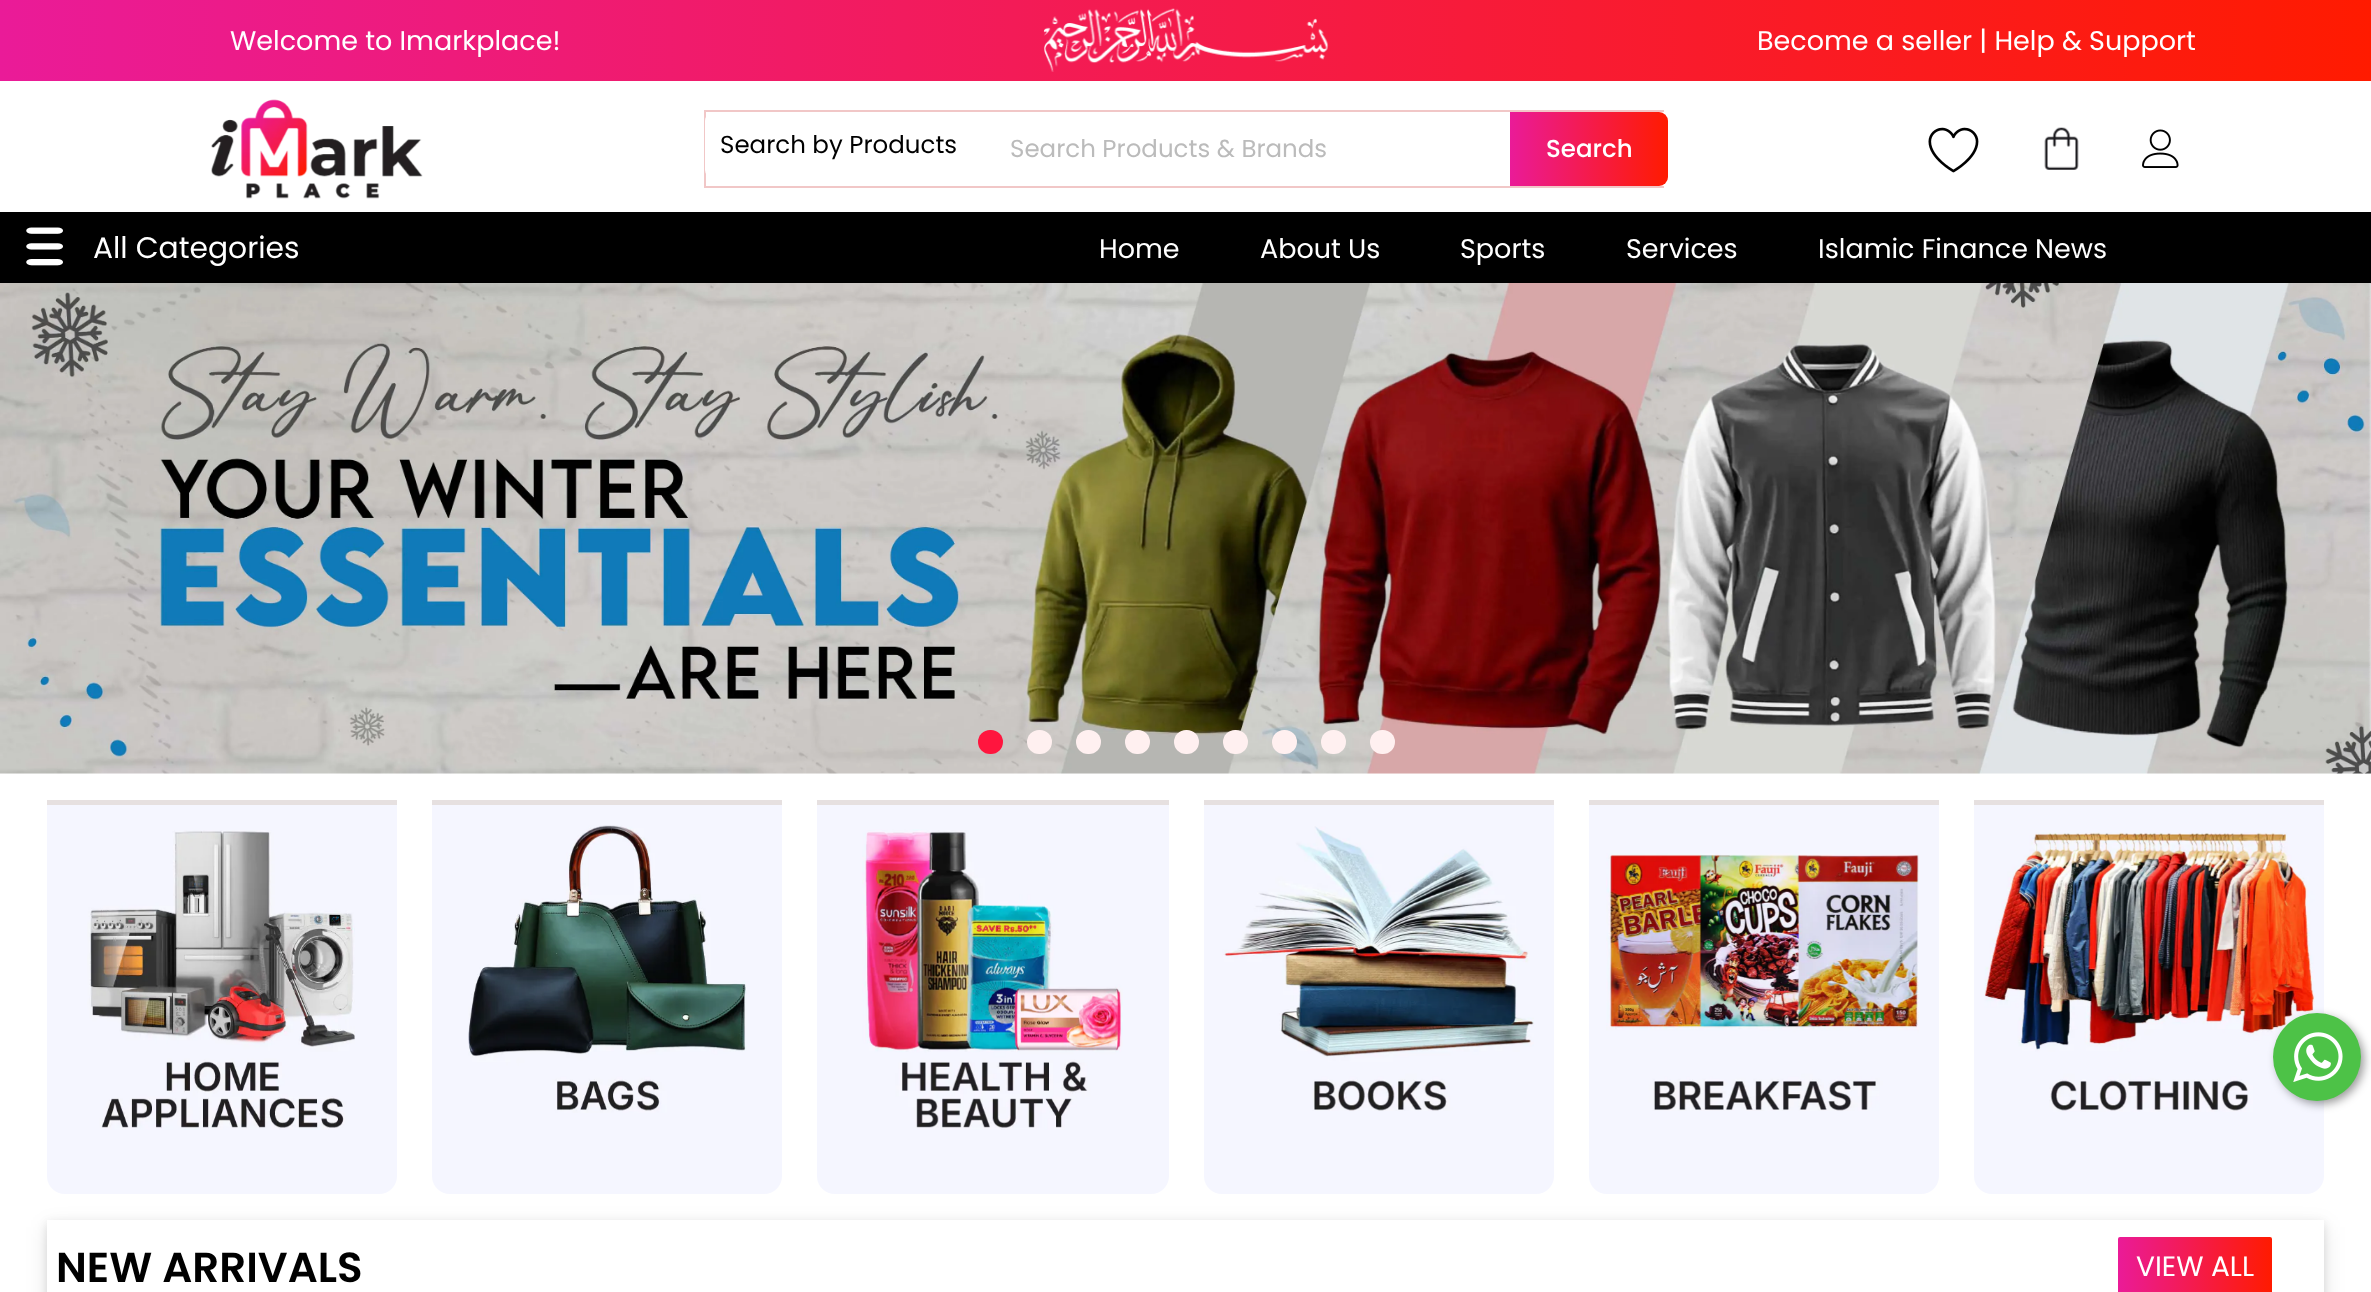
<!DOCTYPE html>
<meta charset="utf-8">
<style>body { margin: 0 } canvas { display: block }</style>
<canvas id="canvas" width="2371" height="1292"></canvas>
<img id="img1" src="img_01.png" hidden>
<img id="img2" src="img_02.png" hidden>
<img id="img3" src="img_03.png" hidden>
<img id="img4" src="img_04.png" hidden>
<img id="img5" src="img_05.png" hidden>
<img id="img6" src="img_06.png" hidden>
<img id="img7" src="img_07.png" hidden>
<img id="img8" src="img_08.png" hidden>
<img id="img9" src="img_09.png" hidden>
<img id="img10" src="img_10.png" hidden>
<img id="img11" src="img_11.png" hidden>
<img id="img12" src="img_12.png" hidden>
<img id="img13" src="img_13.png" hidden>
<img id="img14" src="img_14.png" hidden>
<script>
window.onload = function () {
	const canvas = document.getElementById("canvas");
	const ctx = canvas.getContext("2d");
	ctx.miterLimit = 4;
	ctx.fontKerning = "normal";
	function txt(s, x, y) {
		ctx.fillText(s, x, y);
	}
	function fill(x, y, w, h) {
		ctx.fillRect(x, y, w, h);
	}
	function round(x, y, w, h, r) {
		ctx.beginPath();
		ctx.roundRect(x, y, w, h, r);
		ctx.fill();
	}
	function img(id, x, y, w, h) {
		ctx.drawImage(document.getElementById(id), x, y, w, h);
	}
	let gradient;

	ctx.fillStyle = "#FFFFFF";
	fill(0, 0, 2371, 1292);
	gradient = ctx.createLinearGradient(0, 40, 2371, 40);
	gradient.addColorStop(0, "#EA1B98");
	gradient.addColorStop(1, "#FF1B00");
	ctx.fillStyle = gradient;
	fill(0, 0, 2371, 81);
	img("img1", 1043, 8, 286, 64);
	img("img2", 211, 99, 212, 100);
	ctx.fillStyle = "#F1C7C7";
	fill(704, 110, 960, 2);
	fill(704, 186, 960, 2);
	fill(704, 110, 2, 77);
	ctx.fillStyle = "#FFFFFF";
	ctx.beginPath();
	ctx.roundRect(705, 112, 296, 67, [9, 0, 0, 9]);
	ctx.fill();
	gradient = ctx.createLinearGradient(1510, 149, 1668, 149);
	gradient.addColorStop(0, "#EA1B98");
	gradient.addColorStop(1, "#FF1B00");
	ctx.fillStyle = gradient;
	ctx.beginPath();
	ctx.roundRect(1510, 112, 158, 74, [0, 9, 9, 0]);
	ctx.fill();
	img("img3", 1928, 127, 51, 46);
	img("img4", 2044, 127, 35, 43);
	img("img5", 2142, 129, 37, 39);
	ctx.fillStyle = "#000000";
	fill(0, 212, 2371, 72);
	img("img6", 26, 227, 37, 39);
	img("img7", 0, 283, 2371, 491);
	ctx.fillStyle = "#FF153E";
	round(978, 730, 25, 24, 12);
	ctx.fillStyle = "#FFF0F0";
	round(1027, 730, 25, 24, 12);
	round(1076, 730, 25, 24, 12);
	round(1125, 730, 25, 24, 12);
	round(1174, 730, 25, 24, 12);
	round(1223, 730, 25, 24, 12);
	round(1272, 730, 25, 24, 12);
	round(1321, 730, 25, 24, 12);
	round(1370, 730, 25, 24, 12);
	ctx.fillStyle = "#F5F6FF";
	ctx.beginPath();
	ctx.roundRect(47, 800, 350, 394, [0, 0, 18, 18]);
	ctx.fill();
	ctx.fillStyle = "#E6E0E0";
	fill(47, 800, 350, 5);
	img("img8", 87, 830, 268, 300);
	ctx.fillStyle = "#F5F6FF";
	ctx.beginPath();
	ctx.roundRect(432, 800, 350, 394, [0, 0, 18, 18]);
	ctx.fill();
	ctx.fillStyle = "#E6E0E0";
	fill(432, 800, 350, 5);
	img("img9", 468, 825, 279, 288);
	ctx.fillStyle = "#F5F6FF";
	ctx.beginPath();
	ctx.roundRect(817, 800, 352, 394, [0, 0, 18, 18]);
	ctx.fill();
	ctx.fillStyle = "#E6E0E0";
	fill(817, 800, 352, 5);
	img("img10", 862, 829, 261, 301);
	ctx.fillStyle = "#F5F6FF";
	ctx.beginPath();
	ctx.roundRect(1204, 800, 350, 394, [0, 0, 18, 18]);
	ctx.fill();
	ctx.fillStyle = "#E6E0E0";
	fill(1204, 800, 350, 5);
	img("img11", 1222, 826, 312, 285);
	ctx.fillStyle = "#F5F6FF";
	ctx.beginPath();
	ctx.roundRect(1589, 800, 350, 394, [0, 0, 18, 18]);
	ctx.fill();
	ctx.fillStyle = "#E6E0E0";
	fill(1589, 800, 350, 5);
	img("img12", 1606, 853, 313, 258);
	ctx.fillStyle = "#F5F6FF";
	ctx.beginPath();
	ctx.roundRect(1974, 800, 350, 394, [0, 0, 18, 18]);
	ctx.fill();
	ctx.fillStyle = "#E6E0E0";
	fill(1974, 800, 350, 5);
	img("img13", 1984, 832, 331, 280);
	ctx.fillStyle = "rgba(0, 0, 0, 0.1)";
	ctx.filter = "blur(10.5px)";
	ctx.beginPath();
	ctx.rect(47, 1227, 2277, 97);
	ctx.fill();
	ctx.filter = "none";
	ctx.filter = "blur(5px)";
	ctx.beginPath();
	ctx.rect(47, 1223, 2277, 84);
	ctx.fill();
	ctx.filter = "none";
	ctx.fillStyle = "#FFFFFF";
	fill(47, 1220, 2277, 72);
	gradient = ctx.createLinearGradient(2118, 1267, 2272, 1267);
	gradient.addColorStop(0, "#EA1B98");
	gradient.addColorStop(1, "#FF1B00");
	ctx.fillStyle = gradient;
	round(2118, 1237, 154, 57, 2);
	ctx.fillStyle = "rgba(0, 0, 0, 0.4)";
	ctx.filter = "blur(5px)";
	ctx.beginPath();
	ctx.roundRect(2277, 1017, 87, 87, 43.5);
	ctx.fill();
	ctx.filter = "none";
	ctx.fillStyle = "#4DC247";
	ctx.beginPath();
	ctx.arc(2317, 1057, 44, 0, Math.PI * 2);
	ctx.fill();
	img("img14", 2293, 1032, 50, 50);
	ctx.font = "27px Poppins";
	ctx.fillStyle = "#FFFFFF";
	txt("Welcome to Imarkplace!", 230, 50);
	txt("Become a seller | Help & Support", 1757, 50);
	ctx.font = "24.5px Poppins";
	ctx.fillStyle = "#000000";
	txt("Search by Products", 720, 153);
	ctx.fillStyle = "#BBBBBB";
	txt("Search Products & Brands", 1010, 157);
	ctx.font = "500 24.5px Poppins";
	ctx.fillStyle = "#FFFFFF";
	txt("Search", 1546, 157);
	ctx.font = "29.75px Poppins";
	txt("All Categories", 93, 258);
	ctx.font = "27px Poppins";
	txt("Home", 1099, 258);
	txt("About Us", 1260, 258);
	txt("Sports", 1460, 258);
	txt("Services", 1626, 258);
	txt("Islamic Finance News", 1818, 258);
	ctx.font = "600 42px Poppins";
	ctx.fillStyle = "#000000";
	txt("NEW ARRIVALS", 56, 1282);
	ctx.font = "28px Poppins";
	ctx.fillStyle = "#FFFFFF";
	txt("VIEW ALL", 2136, 1276);
};
</script>
